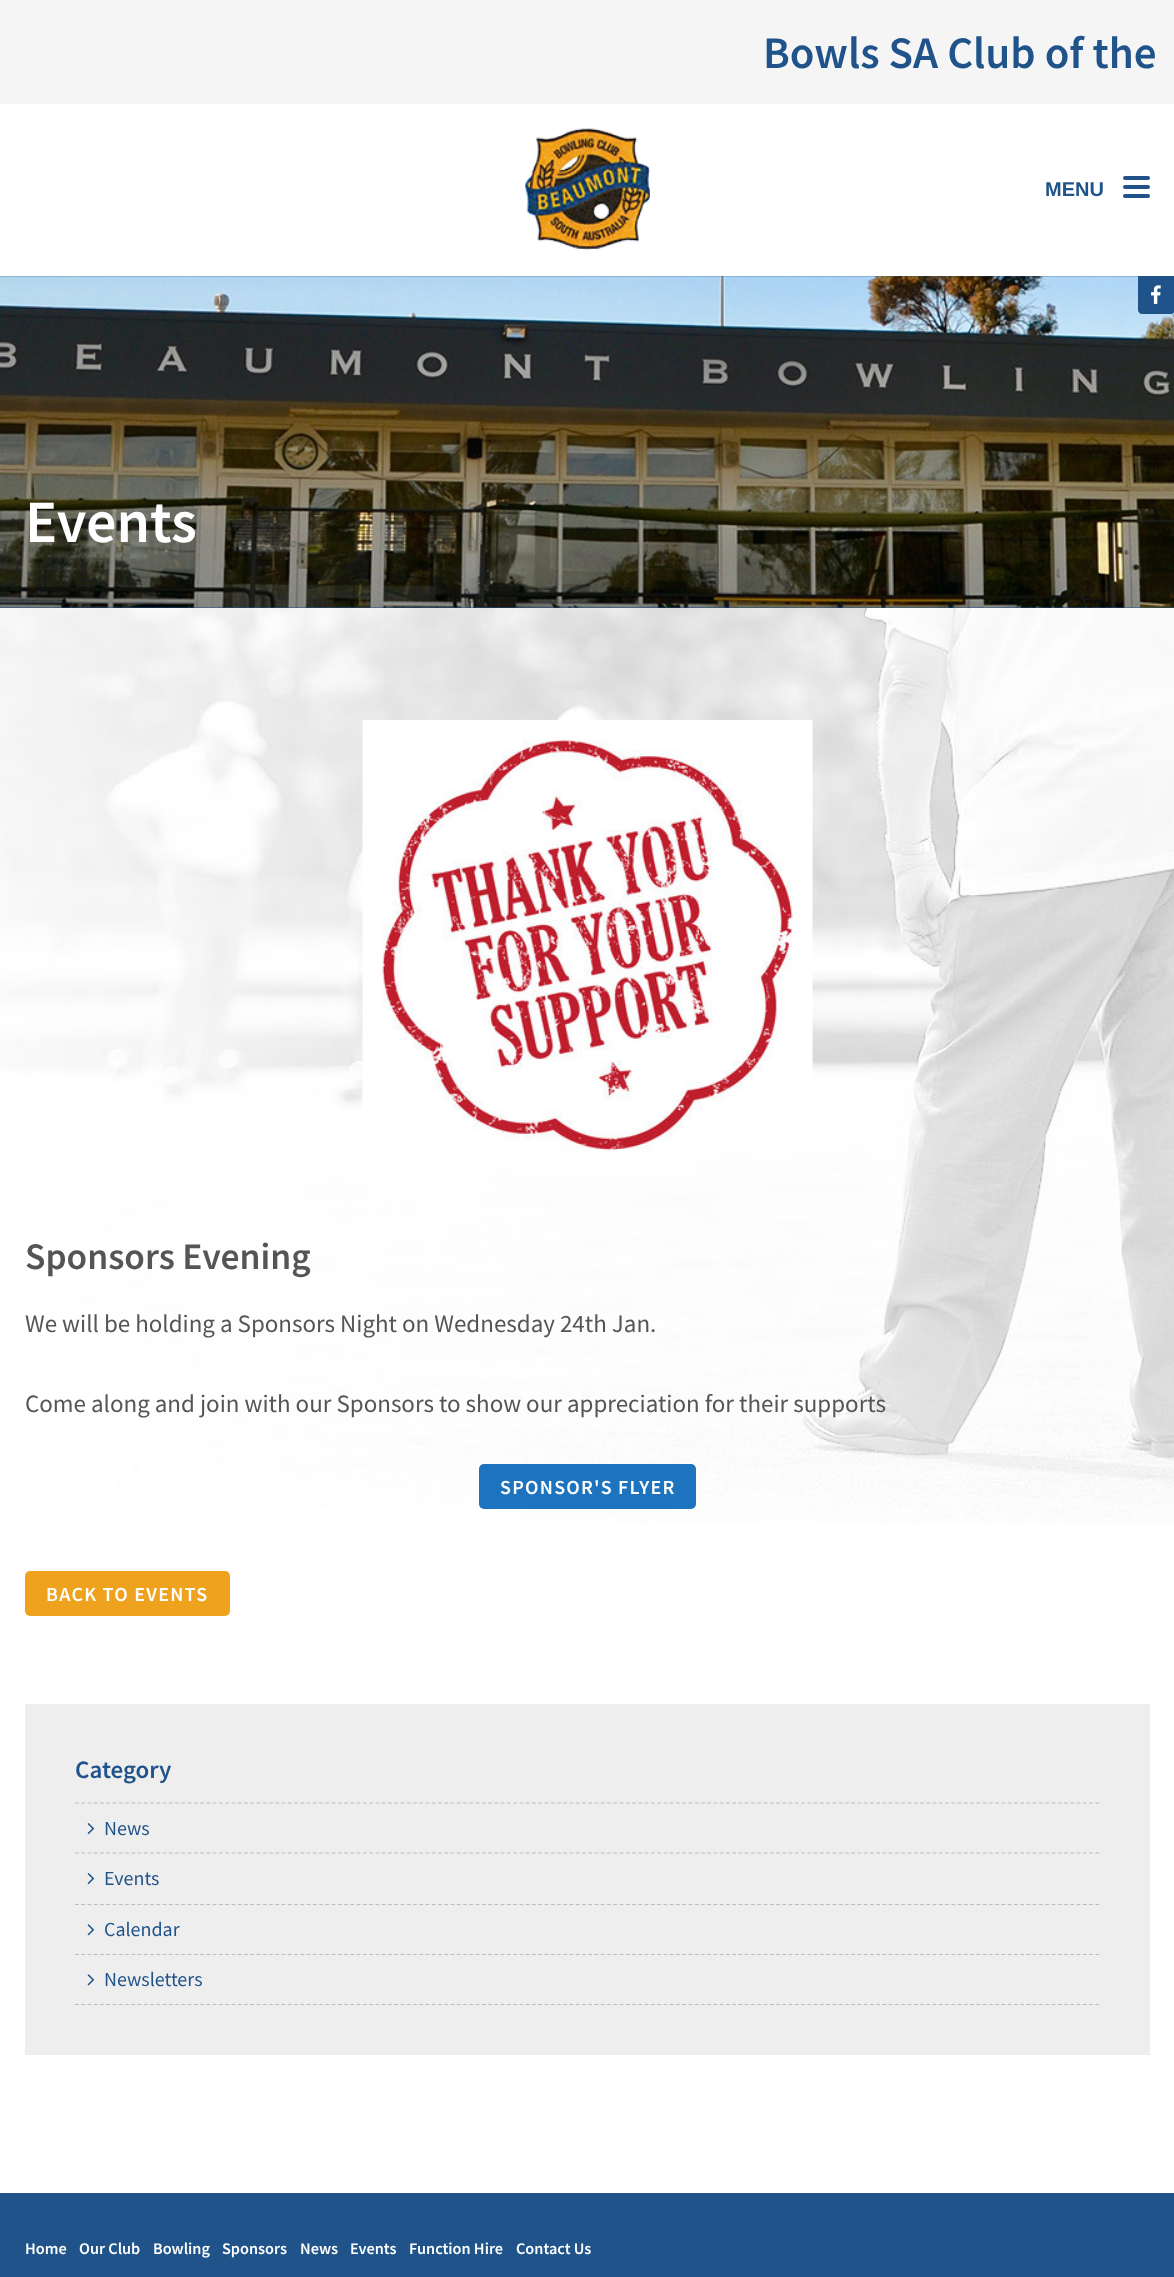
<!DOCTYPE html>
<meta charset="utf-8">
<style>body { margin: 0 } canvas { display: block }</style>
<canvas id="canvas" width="1174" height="2277"></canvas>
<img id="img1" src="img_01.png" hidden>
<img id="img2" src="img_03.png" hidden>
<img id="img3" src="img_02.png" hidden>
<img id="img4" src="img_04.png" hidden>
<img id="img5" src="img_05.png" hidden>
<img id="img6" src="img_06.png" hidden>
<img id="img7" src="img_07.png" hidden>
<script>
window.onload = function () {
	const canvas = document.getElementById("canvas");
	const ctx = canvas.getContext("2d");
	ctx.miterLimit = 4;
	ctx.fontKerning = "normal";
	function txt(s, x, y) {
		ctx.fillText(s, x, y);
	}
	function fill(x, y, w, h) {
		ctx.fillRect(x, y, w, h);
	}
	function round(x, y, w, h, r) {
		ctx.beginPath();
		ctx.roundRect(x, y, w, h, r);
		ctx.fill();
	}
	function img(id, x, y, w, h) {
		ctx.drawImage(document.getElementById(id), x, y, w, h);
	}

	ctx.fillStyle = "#FFFFFF";
	fill(0, 0, 1174, 2277);
	ctx.fillStyle = "#F5F5F5";
	fill(0, 0, 1174, 104);
	img("img1", 525, 128, 125, 122);
	ctx.fillStyle = "#1F538A";
	round(1123, 176, 27, 4, 2);
	round(1123, 185, 27, 4, 2);
	round(1123, 194, 27, 4, 2);
	fill(0, 276, 1174, 332);
	img("img2", 0, 276, 1174, 332);
	ctx.beginPath();
	ctx.moveTo(1138, 276);
	ctx.lineTo(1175, 276);
	ctx.lineTo(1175, 310);
	ctx.bezierCurveTo(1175, 312, 1173, 314, 1171, 314);
	ctx.lineTo(1142, 314);
	ctx.bezierCurveTo(1140, 314, 1138, 312, 1138, 310);
	ctx.closePath();
	ctx.fill();
	img("img3", 1151, 285, 10, 19);
	img("img4", 0, 608, 1174, 916);
	img("img5", 362, 720, 451, 431);
	ctx.fillStyle = "#1E73BE";
	round(479, 1464, 217, 45, 5);
	ctx.fillStyle = "#EFA21E";
	round(25, 1571, 205, 45, 5);
	ctx.fillStyle = "#EEEEEE";
	fill(25, 1704, 1125, 351);
	ctx.beginPath();
	ctx.moveTo(75, 1803);
	ctx.lineTo(1100, 1803);
	ctx.strokeStyle = "#BBBBBB";
	ctx.lineWidth = 1.2;
	ctx.setLineDash([3.75, 2.51]);
	ctx.stroke();
	ctx.beginPath();
	ctx.moveTo(75, 1853);
	ctx.lineTo(1100, 1853);
	ctx.stroke();
	img("img6", 87, 1823, 8, 12);
	ctx.beginPath();
	ctx.moveTo(75, 1904.5);
	ctx.lineTo(1100, 1904.5);
	ctx.stroke();
	img("img6", 87, 1873, 8, 12);
	ctx.beginPath();
	ctx.moveTo(75, 1954.5);
	ctx.lineTo(1100, 1954.5);
	ctx.stroke();
	img("img7", 87, 1924, 8, 12);
	ctx.beginPath();
	ctx.moveTo(75, 2004.5);
	ctx.lineTo(1100, 2004.5);
	ctx.stroke();
	img("img7", 87, 1974, 8, 12);
	ctx.fillStyle = "#1F538A";
	fill(0, 2193, 1174, 84);
	ctx.font = "600 45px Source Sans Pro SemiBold";
	txt("Bowls SA Club of the", 763, 68);
	ctx.font = "bold 20px Liberation Sans";
	txt("MENU", 1045, 196);
	ctx.font = "600 60px Source Sans Pro SemiBold";
	ctx.fillStyle = "#FFFFFF";
	txt("Events", 25, 542);
	ctx.font = "600 37.5px Source Sans Pro SemiBold";
	ctx.fillStyle = "#555555";
	txt("Sponsors Evening", 25, 1269);
	ctx.font = "25px Source Sans Pro";
	txt("We will be holding a Sponsors Night on Wednesday 24th Jan.", 25, 1332);
	txt("Come along and join with our Sponsors to show our appreciation for their supports", 25, 1412);
	ctx.letterSpacing = "1.25px";
	ctx.font = "600 20px Source Sans Pro SemiBold";
	ctx.fillStyle = "#FFFFFF";
	txt("SPONSOR'S FLYER", 500, 1494);
	txt("BACK TO EVENTS", 46, 1601);
	ctx.letterSpacing = "0px";
	ctx.font = "600 25px Source Sans Pro SemiBold";
	ctx.fillStyle = "#1F538A";
	txt("Category", 75, 1778);
	ctx.font = "20px Source Sans Pro";
	txt("News", 104, 1835);
	txt("Events", 104, 1885);
	txt("Calendar", 104, 1936);
	txt("Newsletters", 104, 1986);
	ctx.font = "600 16.25px Source Sans Pro SemiBold";
	ctx.fillStyle = "#FFFFFF";
	txt("Home", 25, 2254);
	txt("Our Club", 79, 2254);
	txt("Bowling", 153, 2254);
	txt("Sponsors", 222, 2254);
	txt("News", 300, 2254);
	txt("Events", 350, 2254);
	txt("Function Hire", 409, 2254);
	txt("Contact Us", 516, 2254);
};
</script>
